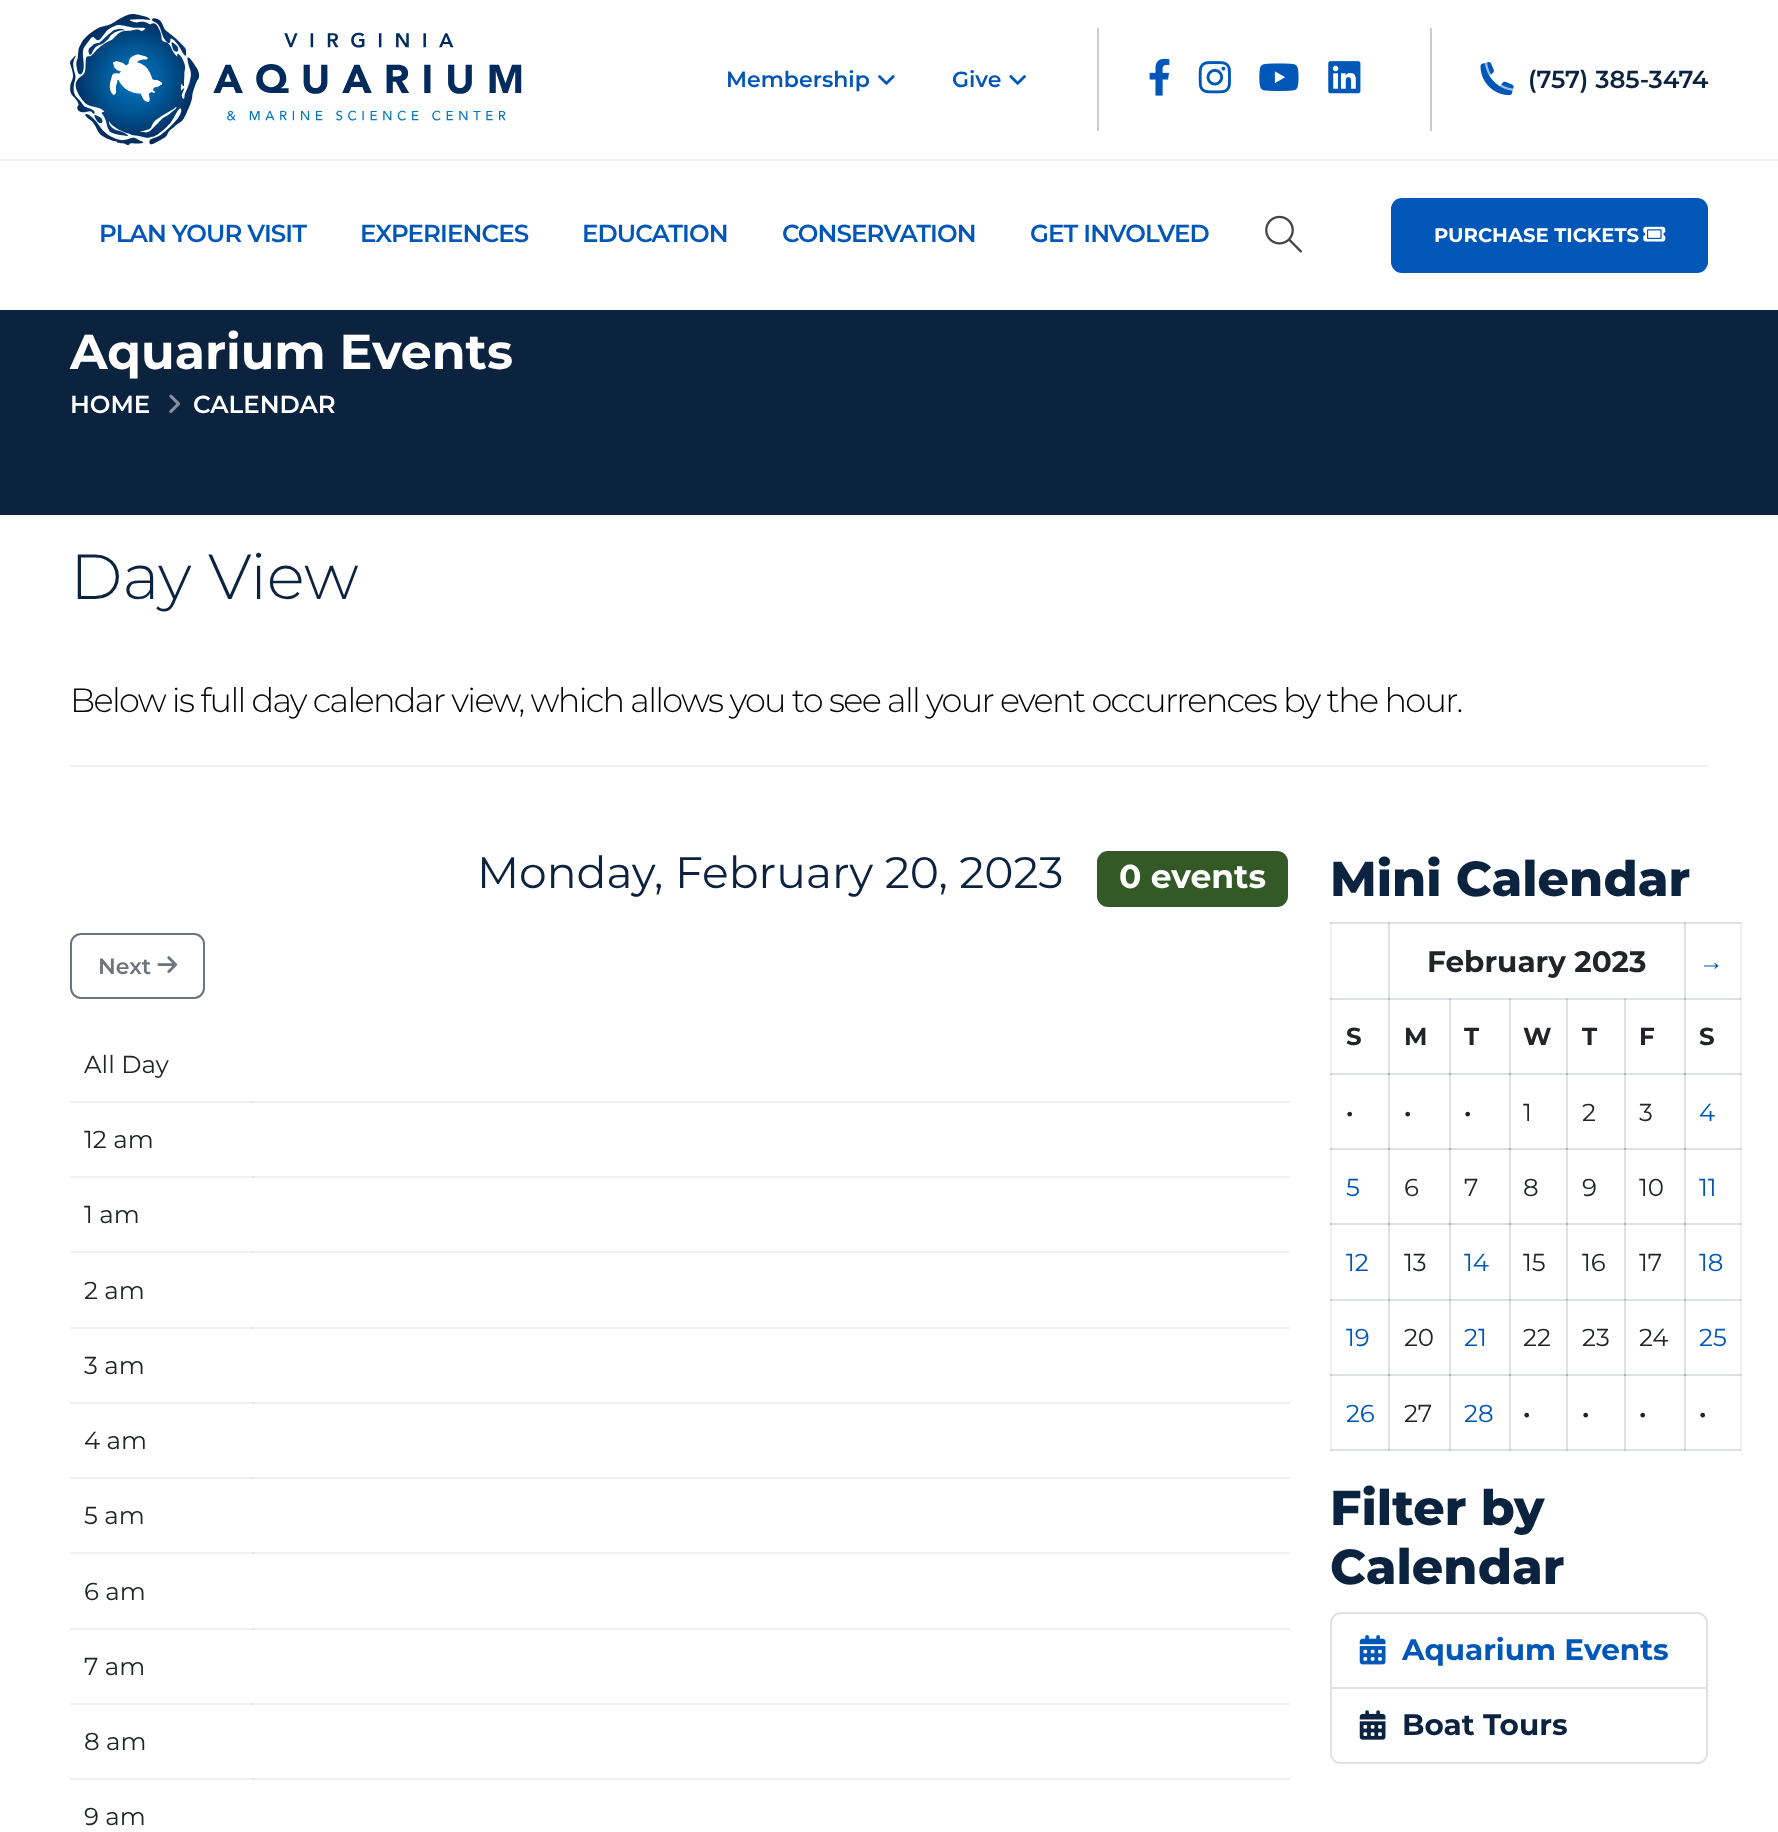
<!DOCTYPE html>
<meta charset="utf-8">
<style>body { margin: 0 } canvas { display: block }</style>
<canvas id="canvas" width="1778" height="1832"></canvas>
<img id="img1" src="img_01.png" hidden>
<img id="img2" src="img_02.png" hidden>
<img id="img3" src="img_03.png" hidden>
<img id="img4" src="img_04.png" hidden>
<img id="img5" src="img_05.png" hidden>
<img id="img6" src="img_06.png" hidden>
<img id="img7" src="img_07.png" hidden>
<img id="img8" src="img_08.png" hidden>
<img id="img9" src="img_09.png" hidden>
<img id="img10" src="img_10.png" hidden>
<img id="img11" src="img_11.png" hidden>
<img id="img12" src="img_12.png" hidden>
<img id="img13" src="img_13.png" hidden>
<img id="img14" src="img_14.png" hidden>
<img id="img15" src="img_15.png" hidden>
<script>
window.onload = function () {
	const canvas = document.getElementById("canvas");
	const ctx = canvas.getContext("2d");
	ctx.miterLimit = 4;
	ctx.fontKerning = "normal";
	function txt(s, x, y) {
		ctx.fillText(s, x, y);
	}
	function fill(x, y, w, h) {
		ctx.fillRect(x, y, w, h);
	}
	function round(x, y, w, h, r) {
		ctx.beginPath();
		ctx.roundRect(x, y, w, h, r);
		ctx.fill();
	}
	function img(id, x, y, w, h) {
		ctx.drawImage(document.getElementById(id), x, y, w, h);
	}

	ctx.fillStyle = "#FFFFFF";
	fill(0, 0, 1778, 1832);
	ctx.fillStyle = "#F0F0F0";
	fill(1330, 922, 2, 529);
	ctx.fillStyle = "#E2E2E2";
	fill(1388, 922, 2, 529);
	fill(1684, 922, 2, 529);
	ctx.fillStyle = "#F0F0F0";
	fill(1740, 922, 2, 529);
	ctx.fillStyle = "#E2E2E2";
	fill(1449, 998, 2, 453);
	fill(1509, 998, 2, 453);
	fill(1566, 998, 2, 453);
	fill(1624, 998, 2, 453);
	fill(1740, 998, 2, 1);
	fill(1740, 1073, 2, 2);
	fill(1740, 1148, 2, 2);
	fill(1740, 1223, 2, 2);
	fill(1740, 1299, 2, 1);
	fill(1740, 1374, 2, 2);
	ctx.fillStyle = "#F0F0F0";
	fill(70, 1101, 1220, 2);
	fill(70, 1176, 1220, 2);
	fill(70, 1251, 1220, 2);
	fill(70, 1327, 1220, 2);
	fill(70, 1402, 1220, 2);
	fill(70, 1477, 1220, 2);
	fill(70, 1552, 1220, 2);
	fill(70, 1628, 1220, 2);
	fill(70, 1703, 1220, 2);
	fill(70, 1778, 1220, 2);
	fill(0, 159, 1778, 2);
	img("img1", 70, 14, 452, 131);
	img("img2", 878, 75, 17, 10);
	img("img3", 1009, 75, 17, 10);
	ctx.fillStyle = "#CCCCCC";
	fill(1097, 28, 2, 103);
	img("img4", 1149, 58, 21, 38);
	img("img5", 1198, 61, 33, 33);
	img("img6", 1259, 63, 40, 28);
	img("img7", 1328, 61, 33, 33);
	fill(1430, 28, 2, 103);
	img("img8", 1480, 62, 34, 34);
	img("img9", 1485, 62, 28, 29);
	img("img10", 1265, 215, 37, 38);
	ctx.fillStyle = "#0057B8";
	round(1391, 198, 317, 75, 11);
	img("img11", 1643, 226, 23, 16);
	ctx.fillStyle = "#0C2340";
	fill(0, 310, 1778, 205);
	img("img12", 169, 394, 11, 19);
	ctx.fillStyle = "#F0F0F0";
	fill(70, 765, 1638, 2);
	ctx.fillStyle = "#325926";
	round(1097, 851, 191, 56, 11);
	ctx.beginPath();
	ctx.roundRect(71, 934, 133, 64, 10);
	ctx.strokeStyle = "#6C757D";
	ctx.lineWidth = 2;
	ctx.stroke();
	img("img13", 157, 956, 21, 17);
	ctx.fillStyle = "#E2E2E2";
	fill(252, 1101, 2, 2);
	fill(252, 1176, 2, 2);
	fill(252, 1251, 2, 2);
	fill(252, 1327, 2, 2);
	fill(252, 1402, 2, 2);
	fill(252, 1477, 2, 2);
	fill(252, 1552, 2, 2);
	fill(252, 1628, 2, 2);
	fill(252, 1703, 2, 2);
	fill(252, 1778, 2, 2);
	ctx.fillStyle = "#DEE2E6";
	fill(1330, 922, 411, 2);
	ctx.fillStyle = "#D1D4D8";
	fill(1330, 922, 2, 2);
	ctx.fillStyle = "#C4C7CB";
	fill(1388, 922, 2, 2);
	fill(1684, 922, 2, 2);
	ctx.fillStyle = "#D1D4D8";
	fill(1740, 922, 1, 2);
	ctx.fillStyle = "#DEE2E6";
	fill(1330, 998, 411, 2);
	ctx.fillStyle = "#D1D4D8";
	fill(1330, 999, 2, 1);
	ctx.fillStyle = "#C4C7CB";
	fill(1330, 998, 2, 1);
	fill(1388, 999, 2, 1);
	ctx.fillStyle = "#ADB0B4";
	fill(1388, 998, 2, 1);
	ctx.fillStyle = "#C4C7CB";
	fill(1449, 998, 2, 2);
	fill(1509, 998, 2, 2);
	fill(1566, 998, 2, 2);
	fill(1624, 998, 2, 2);
	fill(1684, 999, 2, 1);
	ctx.fillStyle = "#ADB0B4";
	fill(1684, 998, 2, 1);
	ctx.fillStyle = "#D1D4D8";
	fill(1740, 998, 1, 2);
	ctx.fillStyle = "#C4C7CB";
	fill(1740, 998, 1, 1);
	ctx.fillStyle = "#DEE2E6";
	fill(1330, 1073, 411, 2);
	ctx.fillStyle = "#C4C7CB";
	fill(1330, 1073, 2, 2);
	ctx.fillStyle = "#ADB0B4";
	fill(1388, 1073, 2, 2);
	fill(1449, 1073, 2, 2);
	fill(1509, 1073, 2, 2);
	fill(1566, 1073, 2, 2);
	fill(1624, 1073, 2, 2);
	fill(1684, 1073, 2, 2);
	ctx.fillStyle = "#C4C7CB";
	fill(1740, 1073, 1, 2);
	ctx.fillStyle = "#DEE2E6";
	fill(1330, 1148, 411, 2);
	ctx.fillStyle = "#C4C7CB";
	fill(1330, 1148, 2, 2);
	ctx.fillStyle = "#ADB0B4";
	fill(1388, 1148, 2, 2);
	fill(1449, 1148, 2, 2);
	fill(1509, 1148, 2, 2);
	fill(1566, 1148, 2, 2);
	fill(1624, 1148, 2, 2);
	fill(1684, 1148, 2, 2);
	ctx.fillStyle = "#C4C7CB";
	fill(1740, 1148, 1, 2);
	ctx.fillStyle = "#DEE2E6";
	fill(1330, 1223, 411, 2);
	ctx.fillStyle = "#C4C7CB";
	fill(1330, 1223, 2, 2);
	ctx.fillStyle = "#ADB0B4";
	fill(1388, 1223, 2, 2);
	fill(1449, 1223, 2, 2);
	fill(1509, 1223, 2, 2);
	fill(1566, 1223, 2, 2);
	fill(1624, 1223, 2, 2);
	fill(1684, 1223, 2, 2);
	ctx.fillStyle = "#C4C7CB";
	fill(1740, 1223, 1, 2);
	ctx.fillStyle = "#DEE2E6";
	fill(1330, 1299, 411, 2);
	ctx.fillStyle = "#D1D4D8";
	fill(1330, 1300, 2, 1);
	ctx.fillStyle = "#C4C7CB";
	fill(1330, 1299, 2, 1);
	fill(1388, 1300, 2, 1);
	ctx.fillStyle = "#ADB0B4";
	fill(1388, 1299, 2, 1);
	ctx.fillStyle = "#C4C7CB";
	fill(1449, 1300, 2, 1);
	ctx.fillStyle = "#ADB0B4";
	fill(1449, 1299, 2, 1);
	ctx.fillStyle = "#C4C7CB";
	fill(1509, 1300, 2, 1);
	ctx.fillStyle = "#ADB0B4";
	fill(1509, 1299, 2, 1);
	ctx.fillStyle = "#C4C7CB";
	fill(1566, 1300, 2, 1);
	ctx.fillStyle = "#ADB0B4";
	fill(1566, 1299, 2, 1);
	ctx.fillStyle = "#C4C7CB";
	fill(1624, 1300, 2, 1);
	ctx.fillStyle = "#ADB0B4";
	fill(1624, 1299, 2, 1);
	ctx.fillStyle = "#C4C7CB";
	fill(1684, 1300, 2, 1);
	ctx.fillStyle = "#ADB0B4";
	fill(1684, 1299, 2, 1);
	ctx.fillStyle = "#D1D4D8";
	fill(1740, 1299, 1, 2);
	ctx.fillStyle = "#C4C7CB";
	fill(1740, 1299, 1, 1);
	ctx.fillStyle = "#DEE2E6";
	fill(1330, 1374, 411, 2);
	ctx.fillStyle = "#C4C7CB";
	fill(1330, 1374, 2, 2);
	ctx.fillStyle = "#ADB0B4";
	fill(1388, 1374, 2, 2);
	fill(1449, 1374, 2, 2);
	fill(1509, 1374, 2, 2);
	fill(1566, 1374, 2, 2);
	fill(1624, 1374, 2, 2);
	fill(1684, 1374, 2, 2);
	ctx.fillStyle = "#C4C7CB";
	fill(1740, 1374, 1, 2);
	ctx.fillStyle = "#DEE2E6";
	fill(1330, 1449, 411, 2);
	ctx.fillStyle = "#D1D4D8";
	fill(1330, 1449, 2, 2);
	ctx.fillStyle = "#C4C7CB";
	fill(1388, 1449, 2, 2);
	fill(1449, 1449, 2, 2);
	fill(1509, 1449, 2, 2);
	fill(1566, 1449, 2, 2);
	fill(1624, 1449, 2, 2);
	fill(1684, 1449, 2, 2);
	ctx.fillStyle = "#D1D4D8";
	fill(1740, 1449, 1, 2);
	ctx.beginPath();
	ctx.roundRect(1331, 1613, 376, 75, [10, 10, 0, 0]);
	ctx.strokeStyle = "#DEE2E6";
	ctx.stroke();
	img("img14", 1359, 1635, 27, 30);
	ctx.fillStyle = "#DEE2E6";
	ctx.beginPath();
	ctx.moveTo(1330, 1689);
	ctx.lineTo(1708, 1689);
	ctx.lineTo(1708, 1754);
	ctx.bezierCurveTo(1708, 1759, 1703, 1764, 1698, 1764);
	ctx.lineTo(1340, 1764);
	ctx.bezierCurveTo(1335, 1764, 1330, 1759, 1330, 1754);
	ctx.closePath();
	ctx.moveTo(1332, 1689);
	ctx.lineTo(1706, 1689);
	ctx.lineTo(1706, 1754);
	ctx.bezierCurveTo(1706, 1758, 1702, 1762, 1698, 1762);
	ctx.lineTo(1340, 1762);
	ctx.bezierCurveTo(1336, 1762, 1332, 1758, 1332, 1754);
	ctx.closePath();
	ctx.fill("evenodd");
	img("img15", 1359, 1710, 27, 30);
	ctx.font = "600 22px Montserrat";
	ctx.fillStyle = "#0057B8";
	txt("Membership", 726, 87);
	txt("Give", 952, 87);
	ctx.font = "600 24.5px Montserrat";
	ctx.fillStyle = "#0C2340";
	txt("(757) 385-3474", 1528, 88);
	ctx.letterSpacing = "-0.9px";
	ctx.fillStyle = "#0057B8";
	txt("PLAN YOUR VISIT", 99, 242);
	txt("EXPERIENCES", 360, 242);
	txt("EDUCATION", 582, 242);
	txt("CONSERVATION", 782, 242);
	txt("GET INVOLVED", 1030, 242);
	ctx.letterSpacing = "0px";
	ctx.font = "bold 19.6px Montserrat";
	ctx.fillStyle = "#FFFFFF";
	txt("PURCHASE TICKETS", 1434, 242);
	ctx.font = "bold 49px Montserrat";
	txt("Aquarium Events", 70, 369);
	ctx.font = "600 24.5px Montserrat";
	txt("HOME", 70, 413);
	txt("CALENDAR", 193, 413);
	ctx.font = "300 63.5px Montserrat";
	ctx.fillStyle = "#0C2340";
	txt("Day View", 70, 599);
	ctx.letterSpacing = "-1.68px";
	ctx.font = "300 33.6px Montserrat";
	ctx.fillStyle = "#000000";
	txt("Below is full day calendar view, which allows you to see all your event occurrences by the hour.", 70, 712);
	ctx.letterSpacing = "0px";
	ctx.font = "44.1px Montserrat";
	ctx.fillStyle = "#0C2340";
	txt("Monday, February 20, 2023", 477, 888);
	ctx.font = "bold 33px Montserrat";
	ctx.fillStyle = "#FFFFFF";
	txt("0 events", 1119, 888);
	ctx.font = "600 22px Montserrat";
	ctx.fillStyle = "#6C757D";
	txt("Next", 98, 974);
	ctx.font = "24.5px Montserrat";
	ctx.fillStyle = "#212529";
	txt("All Day", 84, 1073);
	txt("12 am", 84, 1148);
	txt("1 am", 84, 1223);
	txt("2 am", 84, 1299);
	txt("3 am", 84, 1374);
	txt("4 am", 84, 1449);
	txt("5 am", 84, 1524);
	txt("6 am", 84, 1600);
	txt("7 am", 84, 1675);
	txt("8 am", 84, 1750);
	txt("9 am", 84, 1825);
	ctx.font = "800 49px Montserrat";
	ctx.fillStyle = "#0C2340";
	txt("Mini Calendar", 1330, 896);
	ctx.font = "bold 29.5px Montserrat";
	ctx.fillStyle = "#212529";
	txt("February 2023", 1427, 972);
	ctx.font = "bold 24.5px Liberation Sans";
	ctx.fillStyle = "#0057B8";
	txt("→", 1699, 970);
	ctx.font = "bold 24.5px Montserrat";
	ctx.fillStyle = "#212529";
	txt("S", 1346, 1045);
	txt("M", 1404, 1045);
	txt("T", 1464, 1045);
	txt("W", 1523, 1045);
	txt("T", 1582, 1045);
	txt("F", 1639, 1045);
	txt("S", 1699, 1045);
	txt("·", 1346, 1121);
	txt("·", 1404, 1121);
	txt("·", 1464, 1121);
	ctx.font = "24.5px Montserrat";
	txt("1", 1523, 1121);
	txt("2", 1582, 1121);
	txt("3", 1639, 1121);
	ctx.fillStyle = "#0057B8";
	txt("4", 1699, 1121);
	txt("5", 1346, 1196);
	ctx.fillStyle = "#212529";
	txt("6", 1404, 1196);
	txt("7", 1464, 1196);
	txt("8", 1523, 1196);
	txt("9", 1582, 1196);
	txt("10", 1639, 1196);
	ctx.fillStyle = "#0057B8";
	txt("11", 1699, 1196);
	txt("12", 1346, 1271);
	ctx.fillStyle = "#212529";
	txt("13", 1404, 1271);
	ctx.fillStyle = "#0057B8";
	txt("14", 1464, 1271);
	ctx.fillStyle = "#212529";
	txt("15", 1523, 1271);
	txt("16", 1582, 1271);
	txt("17", 1639, 1271);
	ctx.fillStyle = "#0057B8";
	txt("18", 1699, 1271);
	txt("19", 1346, 1346);
	ctx.fillStyle = "#212529";
	txt("20", 1404, 1346);
	ctx.fillStyle = "#0057B8";
	txt("21", 1464, 1346);
	ctx.fillStyle = "#212529";
	txt("22", 1523, 1346);
	txt("23", 1582, 1346);
	txt("24", 1639, 1346);
	ctx.fillStyle = "#0057B8";
	txt("25", 1699, 1346);
	txt("26", 1346, 1422);
	ctx.fillStyle = "#212529";
	txt("27", 1404, 1422);
	ctx.fillStyle = "#0057B8";
	txt("28", 1464, 1422);
	ctx.font = "bold 24.5px Montserrat";
	ctx.fillStyle = "#212529";
	txt("·", 1523, 1422);
	txt("·", 1582, 1422);
	txt("·", 1639, 1422);
	txt("·", 1699, 1422);
	ctx.font = "800 49px Montserrat";
	ctx.fillStyle = "#0C2340";
	txt("Filter by", 1330, 1525);
	txt("Calendar", 1330, 1584);
	ctx.font = "bold 29.5px Montserrat";
	ctx.fillStyle = "#0057B8";
	txt("Aquarium Events", 1402, 1660);
	ctx.fillStyle = "#0C2340";
	txt("Boat Tours", 1402, 1735);
};
</script>
